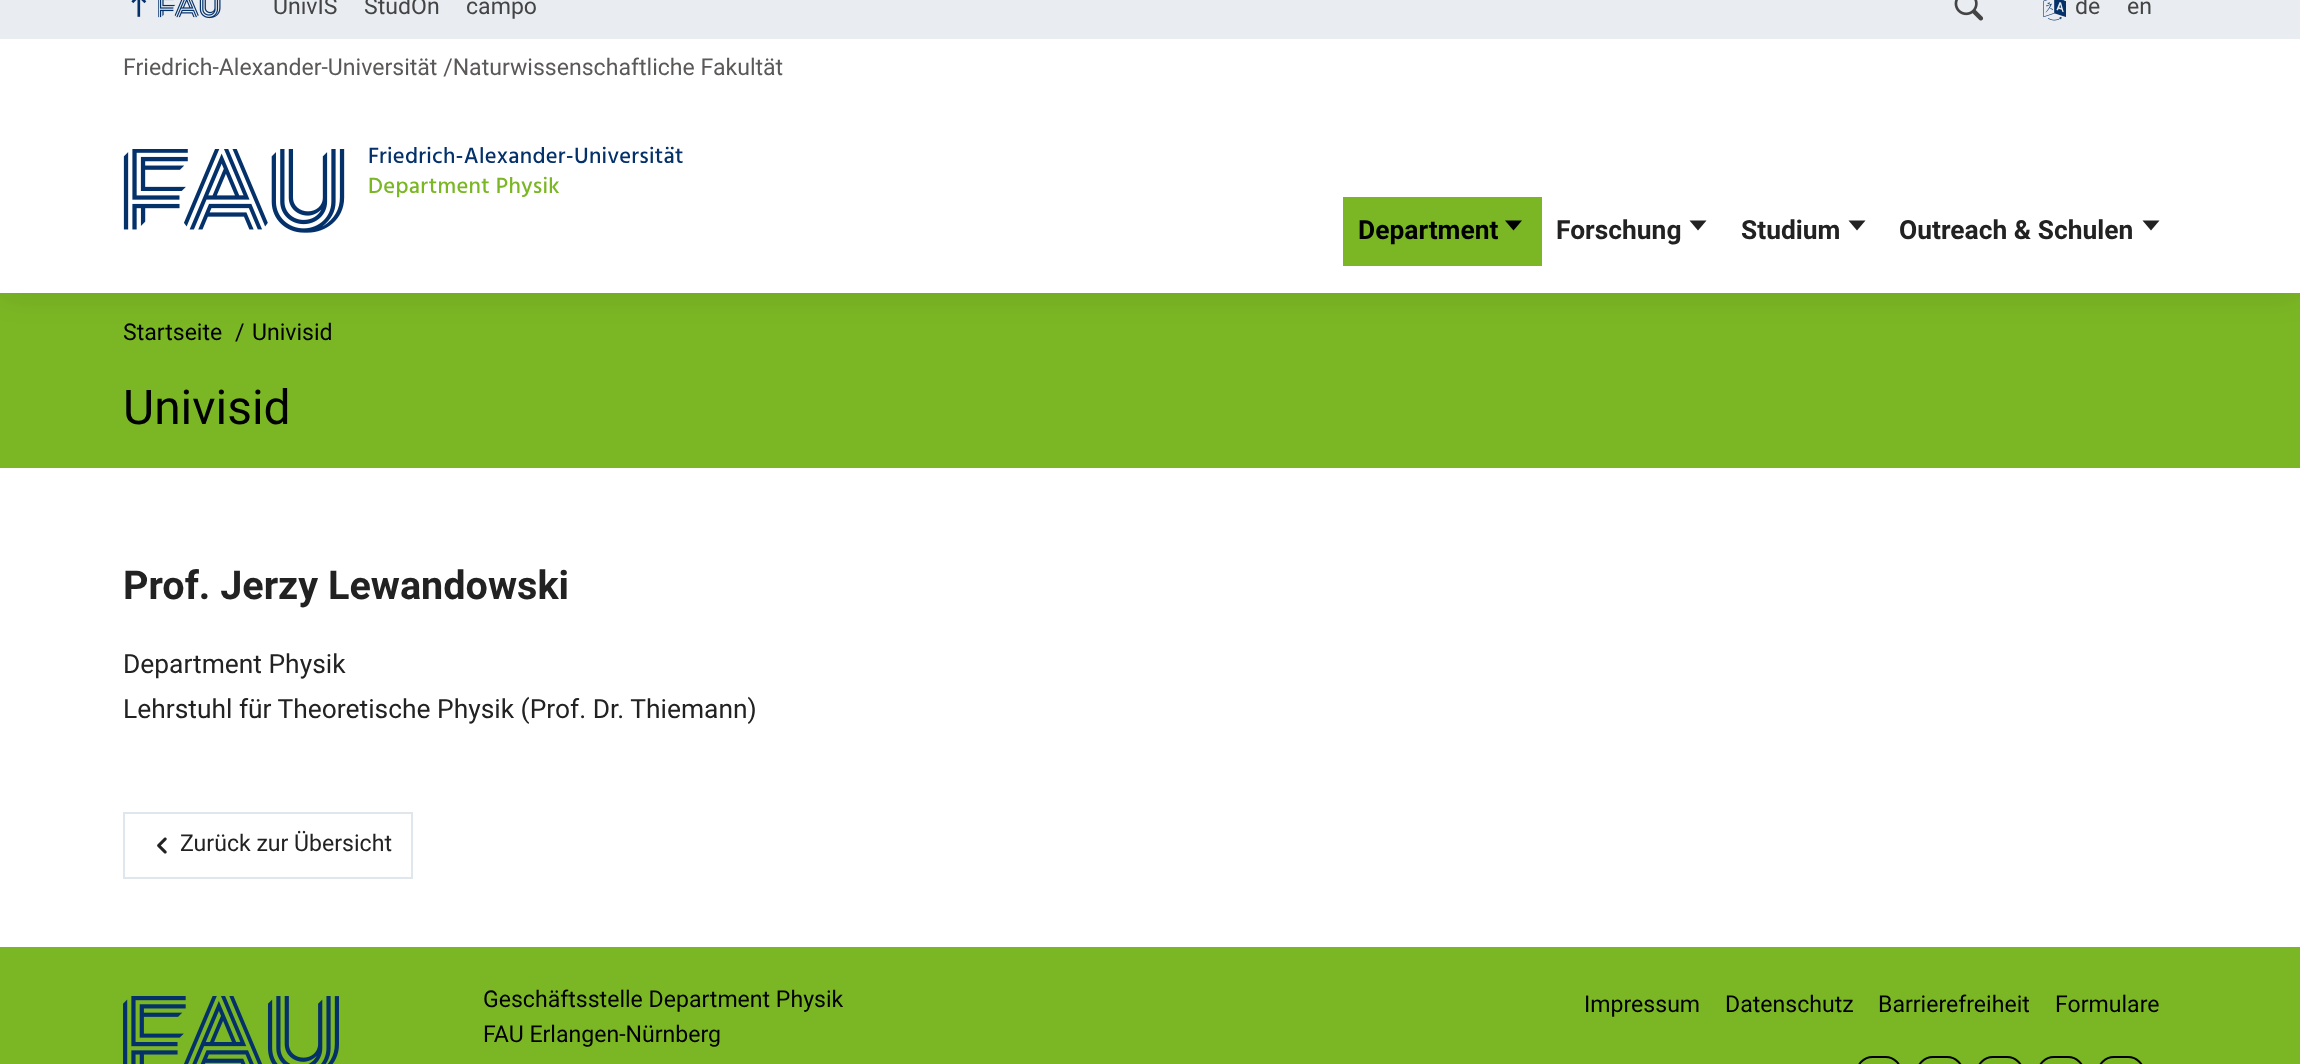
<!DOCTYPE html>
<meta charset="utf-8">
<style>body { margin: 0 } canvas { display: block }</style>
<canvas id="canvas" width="2300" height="1064"></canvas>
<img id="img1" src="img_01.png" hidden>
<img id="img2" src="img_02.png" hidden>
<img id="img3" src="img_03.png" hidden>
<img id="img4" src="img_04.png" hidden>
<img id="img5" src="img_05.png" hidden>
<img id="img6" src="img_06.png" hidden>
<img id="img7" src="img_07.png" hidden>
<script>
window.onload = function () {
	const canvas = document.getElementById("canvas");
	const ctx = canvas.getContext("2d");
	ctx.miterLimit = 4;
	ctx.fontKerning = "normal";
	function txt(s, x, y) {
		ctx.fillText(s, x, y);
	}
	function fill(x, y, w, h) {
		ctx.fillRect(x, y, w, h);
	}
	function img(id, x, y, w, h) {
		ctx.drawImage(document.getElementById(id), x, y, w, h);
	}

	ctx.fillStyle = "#FFFFFF";
	fill(0, 0, 2300, 1064);
	ctx.fillStyle = "#7BB725";
	fill(0, 293, 2300, 175);
	ctx.fillStyle = "rgba(0, 0, 0, 0.11)";
	ctx.filter = "blur(16px)";
	ctx.beginPath();
	ctx.rect(0, -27, 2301, 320);
	ctx.fill();
	ctx.filter = "none";
	ctx.fillStyle = "#FFFFFF";
	fill(0, 39, 2300, 254);
	ctx.fillStyle = "#E9EDF2";
	fill(0, 0, 2300, 39);
	img("img1", 131, 0, 16, 17);
	img("img2", 158, 0, 63, 19);
	img("img3", 1954, 0, 30, 21);
	img("img4", 2043, 0, 23, 21);
	img("img5", 123, 149, 222, 84);
	ctx.fillStyle = "#7BB725";
	fill(1343, 197, 199, 69);
	ctx.fillStyle = "#000000";
	ctx.beginPath();
	ctx.moveTo(1505, 220.5);
	ctx.lineTo(1513.5, 230.5);
	ctx.lineTo(1522, 220.5);
	ctx.closePath();
	ctx.fill();
	ctx.fillStyle = "#222222";
	ctx.beginPath();
	ctx.moveTo(1689.5, 220.5);
	ctx.lineTo(1698, 230.5);
	ctx.lineTo(1706.5, 220.5);
	ctx.closePath();
	ctx.fill();
	ctx.beginPath();
	ctx.moveTo(1848.5, 220.5);
	ctx.lineTo(1857, 230.5);
	ctx.lineTo(1865.5, 220.5);
	ctx.closePath();
	ctx.fill();
	ctx.beginPath();
	ctx.moveTo(2142.5, 220.5);
	ctx.lineTo(2151, 230.5);
	ctx.lineTo(2159.5, 220.5);
	ctx.closePath();
	ctx.fill();
	ctx.strokeStyle = "#DFE6EC";
	ctx.lineWidth = 2;
	ctx.strokeRect(124, 813, 288, 65);
	img("img6", 157, 837, 10, 17);
	ctx.fillStyle = "#7BB725";
	fill(0, 947, 2300, 117);
	img("img7", 123, 996, 216, 68);
	ctx.beginPath();
	ctx.roundRect(1857, 1057, 44, 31, 22);
	ctx.strokeStyle = "#000000";
	ctx.stroke();
	ctx.beginPath();
	ctx.roundRect(1917, 1057, 46, 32, 23);
	ctx.stroke();
	ctx.beginPath();
	ctx.roundRect(1977, 1057, 46, 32, 23);
	ctx.stroke();
	ctx.beginPath();
	ctx.roundRect(2038, 1057, 46, 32, 23);
	ctx.stroke();
	ctx.beginPath();
	ctx.roundRect(2098, 1057, 46, 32, 23);
	ctx.stroke();
	ctx.font = "23.1px Roboto";
	ctx.fillStyle = "#444444";
	txt("UnivIS", 273, 14);
	txt("StudOn", 364, 14);
	txt("campo", 466, 14);
	txt("de", 2075, 14);
	txt("en", 2127, 14);
	ctx.fillStyle = "#5B5858";
	txt("Friedrich-Alexander-Universität /Naturwissenschaftliche Fakultät", 123, 75);
	ctx.letterSpacing = "0.3px";
	ctx.font = "500 22.5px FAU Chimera";
	ctx.fillStyle = "#04316A";
	txt("Friedrich-Alexander-Universität", 368, 163);
	ctx.fillStyle = "#7BB725";
	txt("Department Physik", 368, 193);
	ctx.letterSpacing = "0px";
	ctx.font = "bold 26.4px Roboto";
	ctx.fillStyle = "#000000";
	txt("Department", 1358, 239);
	ctx.fillStyle = "#222222";
	txt("Forschung", 1556, 239);
	txt("Studium", 1741, 239);
	txt("Outreach & Schulen", 1899, 239);
	ctx.font = "23.1px Roboto";
	ctx.fillStyle = "#000000";
	txt("Startseite", 123, 340);
	txt("/", 235, 340);
	txt("Univisid", 252, 340);
	ctx.font = "48px Roboto";
	txt("Univisid", 123, 424);
	ctx.font = "bold 39.6px Roboto";
	ctx.fillStyle = "#222222";
	txt("Prof. Jerzy Lewandowski", 123, 599);
	ctx.font = "26.4px Roboto";
	txt("Department Physik", 123, 673);
	txt("Lehrstuhl für Theoretische Physik (Prof. Dr. Thiemann)", 123, 718);
	ctx.font = "23.1px Roboto";
	txt("Zurück zur Übersicht", 180, 851);
	ctx.fillStyle = "#000000";
	txt("Geschäftsstelle Department Physik", 483, 1007);
	txt("FAU Erlangen-Nürnberg", 483, 1042);
	txt("Impressum", 1584, 1012);
	txt("Datenschutz", 1725, 1012);
	txt("Barrierefreiheit", 1878, 1012);
	txt("Formulare", 2055, 1012);
};
</script>
